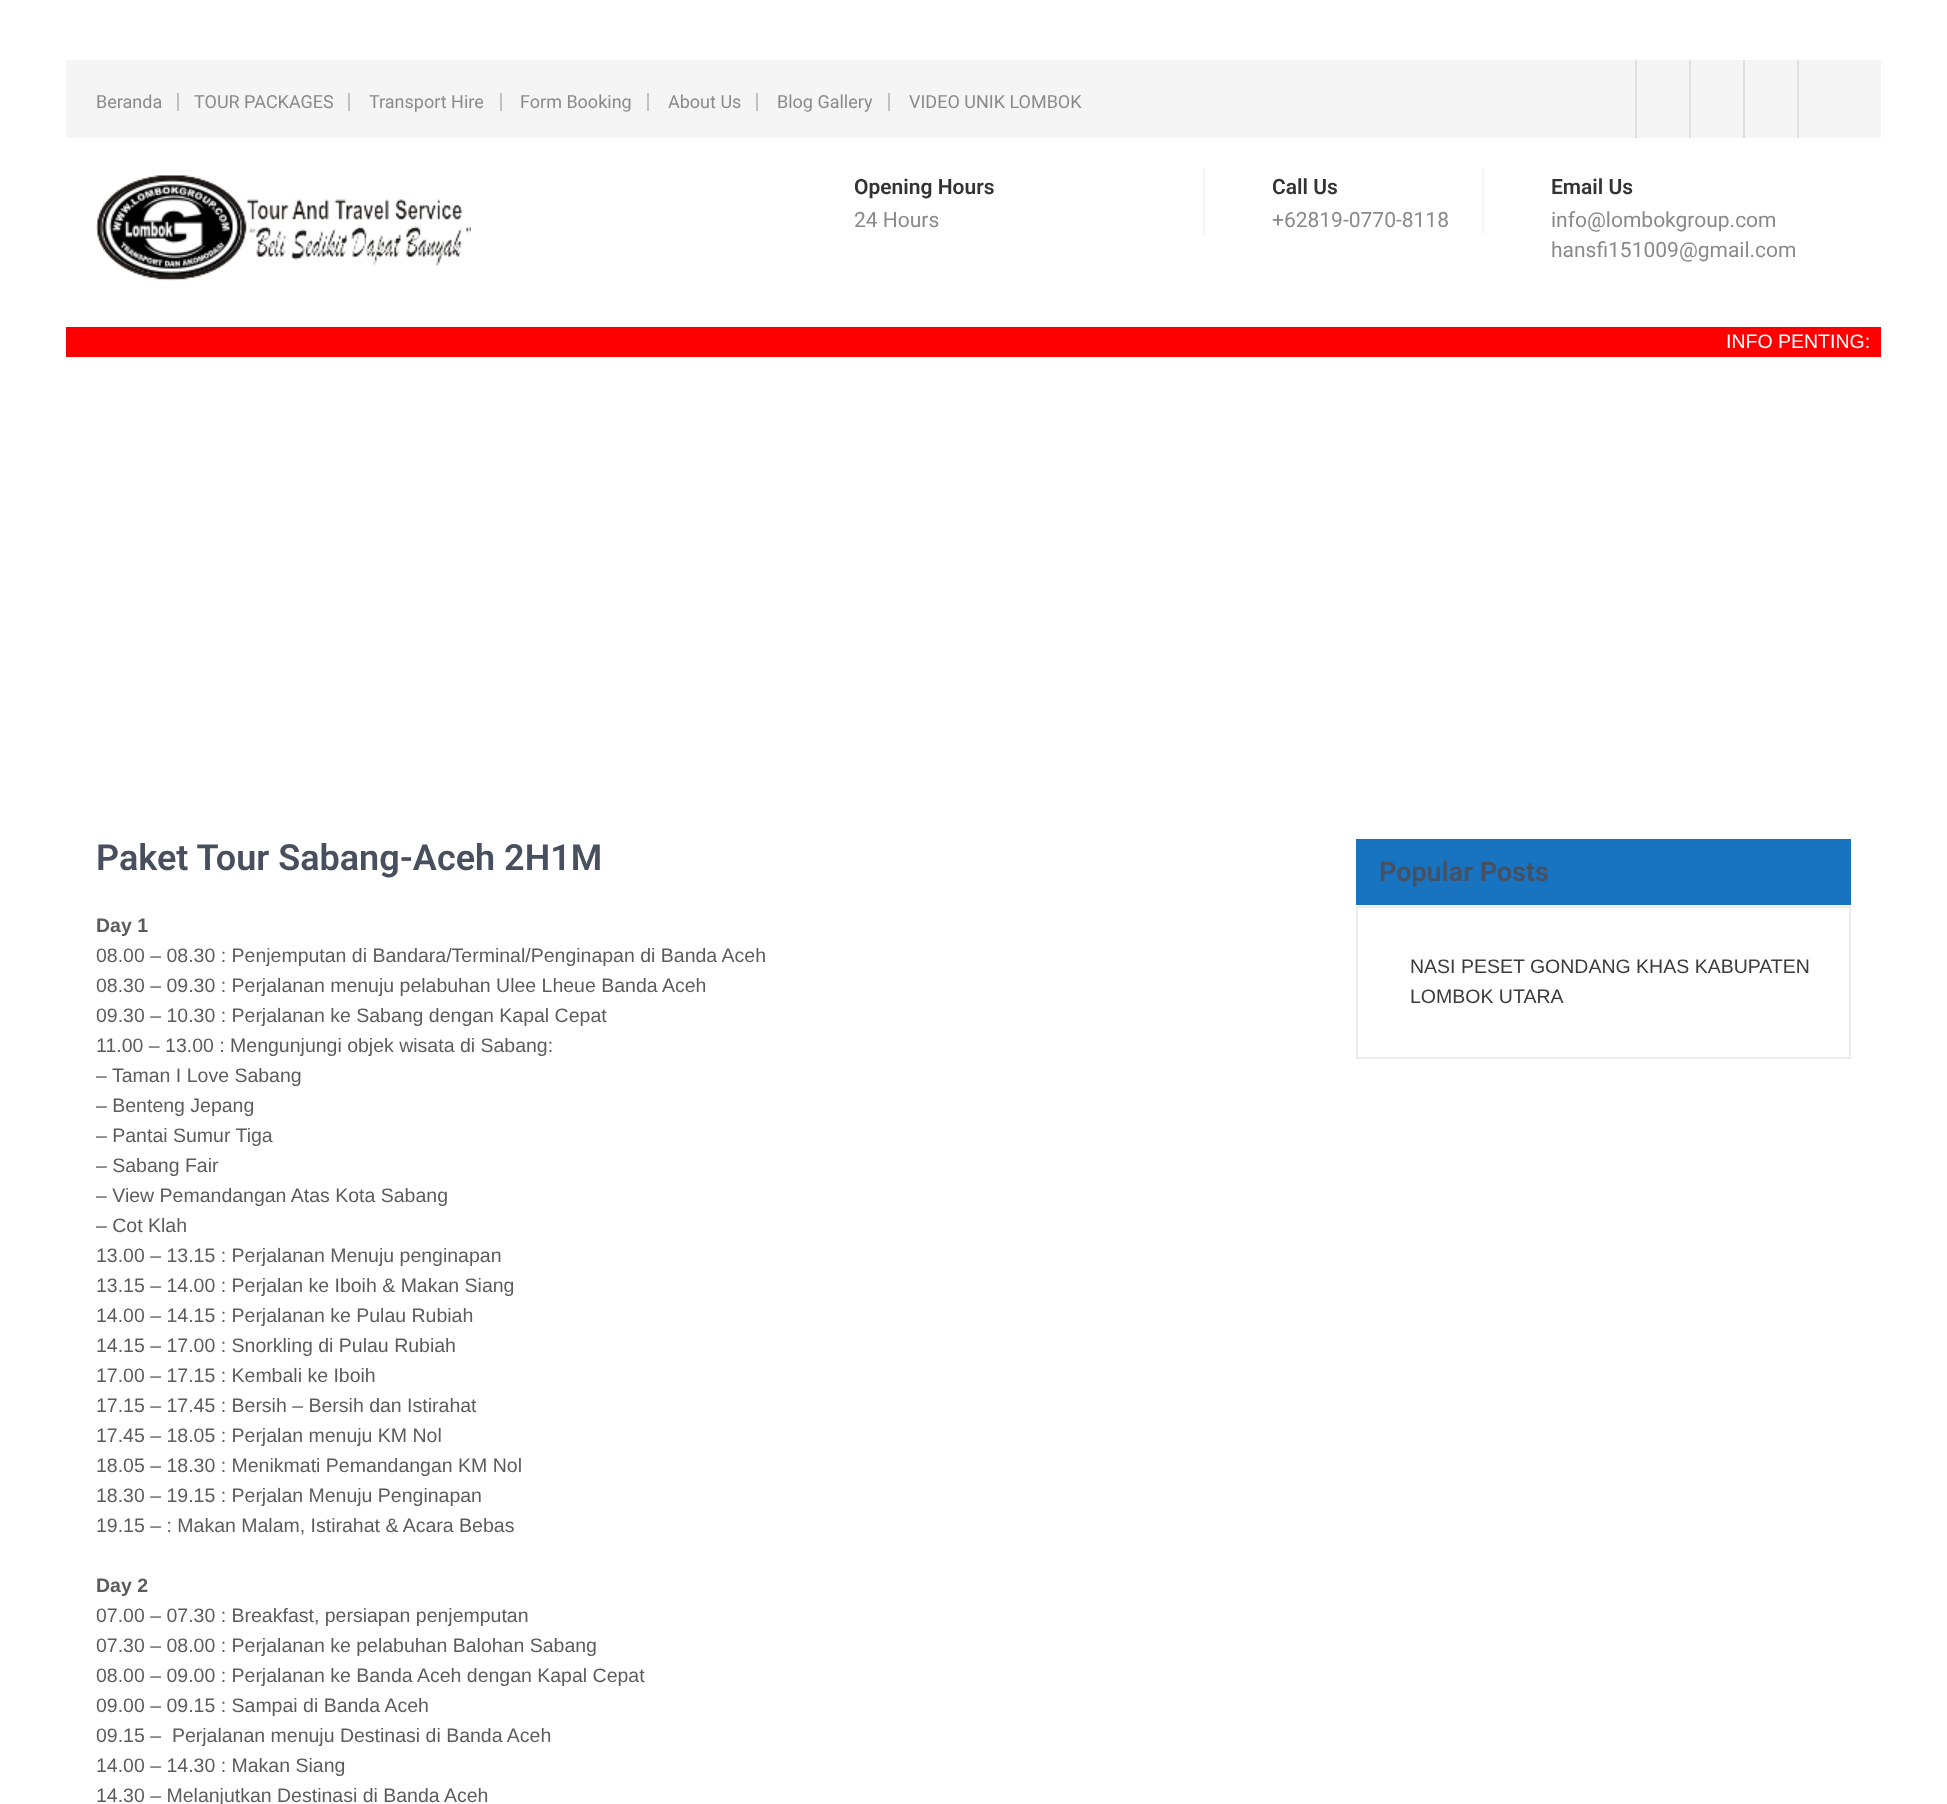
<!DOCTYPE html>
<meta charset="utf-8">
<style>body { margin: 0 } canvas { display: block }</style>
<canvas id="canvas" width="1947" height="1804"></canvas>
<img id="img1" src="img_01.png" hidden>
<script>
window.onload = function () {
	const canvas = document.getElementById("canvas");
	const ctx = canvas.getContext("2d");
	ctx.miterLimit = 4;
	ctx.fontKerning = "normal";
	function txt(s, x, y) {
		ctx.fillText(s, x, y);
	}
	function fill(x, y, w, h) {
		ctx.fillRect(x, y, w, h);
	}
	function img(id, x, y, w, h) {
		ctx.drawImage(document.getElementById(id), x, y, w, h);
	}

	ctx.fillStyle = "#FFFFFF";
	fill(0, 0, 1947, 1804);
	ctx.fillStyle = "#F5F5F5";
	fill(66, 60, 1815, 78);
	ctx.fillStyle = "#C1C1C1";
	fill(177, 93, 2, 18);
	fill(348, 93, 2, 18);
	fill(500, 93, 2, 18);
	fill(647, 93, 2, 18);
	fill(756, 93, 2, 18);
	fill(888, 93, 2, 18);
	ctx.fillStyle = "#E0E0E0";
	fill(1635, 60, 2, 78);
	fill(1689, 60, 2, 78);
	fill(1743, 60, 2, 78);
	fill(1797, 60, 2, 78);
	img("img1", 96, 175, 375, 106);
	ctx.fillStyle = "#F5F5F5";
	fill(1203, 168, 2, 66);
	fill(1482, 168, 2, 66);
	ctx.fillStyle = "#FF0000";
	fill(66, 327, 1815, 30);
	ctx.fillStyle = "#1874C1";
	fill(1356, 839, 495, 66);
	ctx.strokeStyle = "#EDECEC";
	ctx.lineWidth = 2;
	ctx.strokeRect(1357, 907, 493, 151);
	ctx.font = "18px Roboto";
	ctx.fillStyle = "#8A8A8A";
	txt("Beranda", 96, 108);
	txt("TOUR PACKAGES", 194, 108);
	txt("Transport Hire", 369, 108);
	txt("Form Booking", 520, 108);
	txt("About Us", 668, 108);
	txt("Blog Gallery", 777, 108);
	txt("VIDEO UNIK LOMBOK", 909, 108);
	ctx.font = "600 21px Roboto";
	ctx.fillStyle = "#333333";
	txt("Opening Hours", 854, 194);
	ctx.font = "21px Roboto";
	ctx.fillStyle = "#8A8A8A";
	txt("24 Hours", 854, 227);
	ctx.font = "600 21px Roboto";
	ctx.fillStyle = "#333333";
	txt("Call Us", 1272, 194);
	ctx.font = "21px Roboto";
	ctx.fillStyle = "#8A8A8A";
	txt("+62819-0770-8118", 1272, 227);
	ctx.font = "600 21px Roboto";
	ctx.fillStyle = "#333333";
	txt("Email Us", 1551, 194);
	ctx.font = "21px Roboto";
	ctx.fillStyle = "#8A8A8A";
	txt("info@lombokgroup.com", 1551, 227);
	txt("hansfi151009@gmail.com", 1551, 257);
	ctx.font = "19.5px Liberation Sans";
	ctx.fillStyle = "#FFFFFF";
	txt("INFO PENTING:", 1726, 348);
	ctx.font = "600 36px Roboto";
	ctx.fillStyle = "#484F5E";
	txt("Paket Tour Sabang-Aceh 2H1M", 96, 870);
	ctx.font = "bold 19.5px Liberation Sans";
	ctx.fillStyle = "#5C5C5C";
	txt("Day 1", 96, 932);
	ctx.font = "19.5px Liberation Sans";
	txt("08.00 – 08.30 : Penjemputan di Bandara/Terminal/Penginapan di Banda Aceh", 96, 962);
	txt("08.30 – 09.30 : Perjalanan menuju pelabuhan Ulee Lheue Banda Aceh", 96, 992);
	txt("09.30 – 10.30 : Perjalanan ke Sabang dengan Kapal Cepat", 96, 1022);
	txt("11.00 – 13.00 : Mengunjungi objek wisata di Sabang:", 96, 1052);
	txt("– Taman I Love Sabang", 96, 1082);
	txt("– Benteng Jepang", 96, 1112);
	txt("– Pantai Sumur Tiga", 96, 1142);
	txt("– Sabang Fair", 96, 1172);
	txt("– View Pemandangan Atas Kota Sabang", 96, 1202);
	txt("– Cot Klah", 96, 1232);
	txt("13.00 – 13.15 : Perjalanan Menuju penginapan", 96, 1262);
	txt("13.15 – 14.00 : Perjalan ke Iboih & Makan Siang", 96, 1292);
	txt("14.00 – 14.15 : Perjalanan ke Pulau Rubiah", 96, 1322);
	txt("14.15 – 17.00 : Snorkling di Pulau Rubiah", 96, 1352);
	txt("17.00 – 17.15 : Kembali ke Iboih", 96, 1382);
	txt("17.15 – 17.45 : Bersih – Bersih dan Istirahat", 96, 1412);
	txt("17.45 – 18.05 : Perjalan menuju KM Nol", 96, 1442);
	txt("18.05 – 18.30 : Menikmati Pemandangan KM Nol", 96, 1472);
	txt("18.30 – 19.15 : Perjalan Menuju Penginapan", 96, 1502);
	txt("19.15 – : Makan Malam, Istirahat & Acara Bebas", 96, 1532);
	ctx.font = "bold 19.5px Liberation Sans";
	txt("Day 2", 96, 1592);
	ctx.font = "19.5px Liberation Sans";
	txt("07.00 – 07.30 : Breakfast, persiapan penjemputan", 96, 1622);
	txt("07.30 – 08.00 : Perjalanan ke pelabuhan Balohan Sabang", 96, 1652);
	txt("08.00 – 09.00 : Perjalanan ke Banda Aceh dengan Kapal Cepat", 96, 1682);
	txt("09.00 – 09.15 : Sampai di Banda Aceh", 96, 1712);
	txt("09.15 –  Perjalanan menuju Destinasi di Banda Aceh", 96, 1742);
	txt("14.00 – 14.30 : Makan Siang", 96, 1772);
	txt("14.30 – Melanjutkan Destinasi di Banda Aceh", 96, 1802);
	ctx.font = "600 27px Roboto";
	ctx.fillStyle = "#484F5E";
	txt("Popular Posts", 1379, 881);
	ctx.font = "19.5px Liberation Sans";
	ctx.fillStyle = "#3B3B3B";
	txt("NASI PESET GONDANG KHAS KABUPATEN", 1410, 973);
	txt("LOMBOK UTARA", 1410, 1003);
};
</script>
